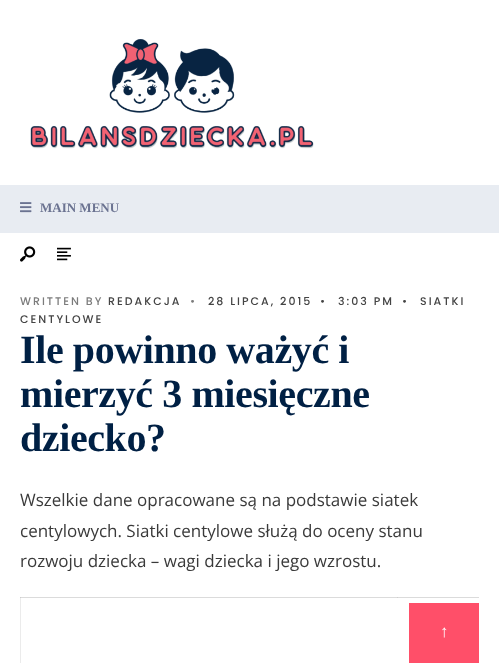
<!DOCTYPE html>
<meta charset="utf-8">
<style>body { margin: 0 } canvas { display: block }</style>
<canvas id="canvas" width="499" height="663"></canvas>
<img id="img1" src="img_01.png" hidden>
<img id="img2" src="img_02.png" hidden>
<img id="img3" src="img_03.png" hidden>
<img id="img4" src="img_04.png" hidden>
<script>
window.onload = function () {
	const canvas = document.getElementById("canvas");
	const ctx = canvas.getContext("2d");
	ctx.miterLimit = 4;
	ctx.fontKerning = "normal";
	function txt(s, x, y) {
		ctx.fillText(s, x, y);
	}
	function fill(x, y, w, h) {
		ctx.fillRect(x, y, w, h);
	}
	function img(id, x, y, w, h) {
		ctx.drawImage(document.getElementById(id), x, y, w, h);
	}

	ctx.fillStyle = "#FFFFFF";
	fill(0, 0, 499, 663);
	ctx.fillStyle = "#EBEBEB";
	fill(20, 597, 1, 66);
	img("img1", 30, 39, 284, 110);
	ctx.fillStyle = "#E8ECF2";
	fill(0, 185, 499, 48);
	img("img2", 20, 202, 12, 11);
	img("img3", 20, 246, 16, 16);
	img("img4", 57, 247, 14, 14);
	ctx.fillStyle = "#DBDBDB";
	fill(20, 597, 459, 1);
	ctx.fillStyle = "#CECECE";
	fill(20, 597, 1, 1);
	fill(397, 597, 1, 1);
	ctx.fillStyle = "#FF4F69";
	fill(409, 603, 70, 60);
	ctx.font = "bold 13px Liberation Serif";
	ctx.fillStyle = "#6B7391";
	txt("MAIN MENU", 40, 212);
	ctx.letterSpacing = "2px";
	ctx.font = "500 11px Poppins";
	ctx.fillStyle = "#7C7C7C";
	txt("WRITTEN BY", 20, 305);
	ctx.fillStyle = "#444444";
	txt("REDAKCJA", 108, 305);
	ctx.fillStyle = "#7C7C7C";
	txt("•", 190, 305);
	ctx.fillStyle = "#444444";
	txt("28 LIPCA, 2015", 208, 305);
	txt("•", 320, 305);
	txt("3:03 PM", 338, 305);
	txt("•", 402, 305);
	txt("SIATKI", 420, 305);
	txt("CENTYLOWE", 20, 323);
	ctx.letterSpacing = "-0.4px";
	ctx.font = "bold 40px Liberation Serif";
	ctx.fillStyle = "#002044";
	txt("Ile powinno ważyć i", 20, 363);
	txt("mierzyć 3 miesięczne", 20, 407);
	txt("dziecko?", 20, 451);
	ctx.letterSpacing = "0px";
	ctx.font = "17px Open Sans";
	ctx.fillStyle = "#3A3A3A";
	txt("Wszelkie dane opracowane są na podstawie siatek", 20, 506);
	txt("centylowych. Siatki centylowe służą do oceny stanu", 20, 537);
	txt("rozwoju dziecka – wagi dziecka i jego wzrostu.", 20, 567);
	ctx.font = "17px Liberation Serif";
	ctx.fillStyle = "#FFFFFF";
	txt("↑", 440, 637);
};
</script>
